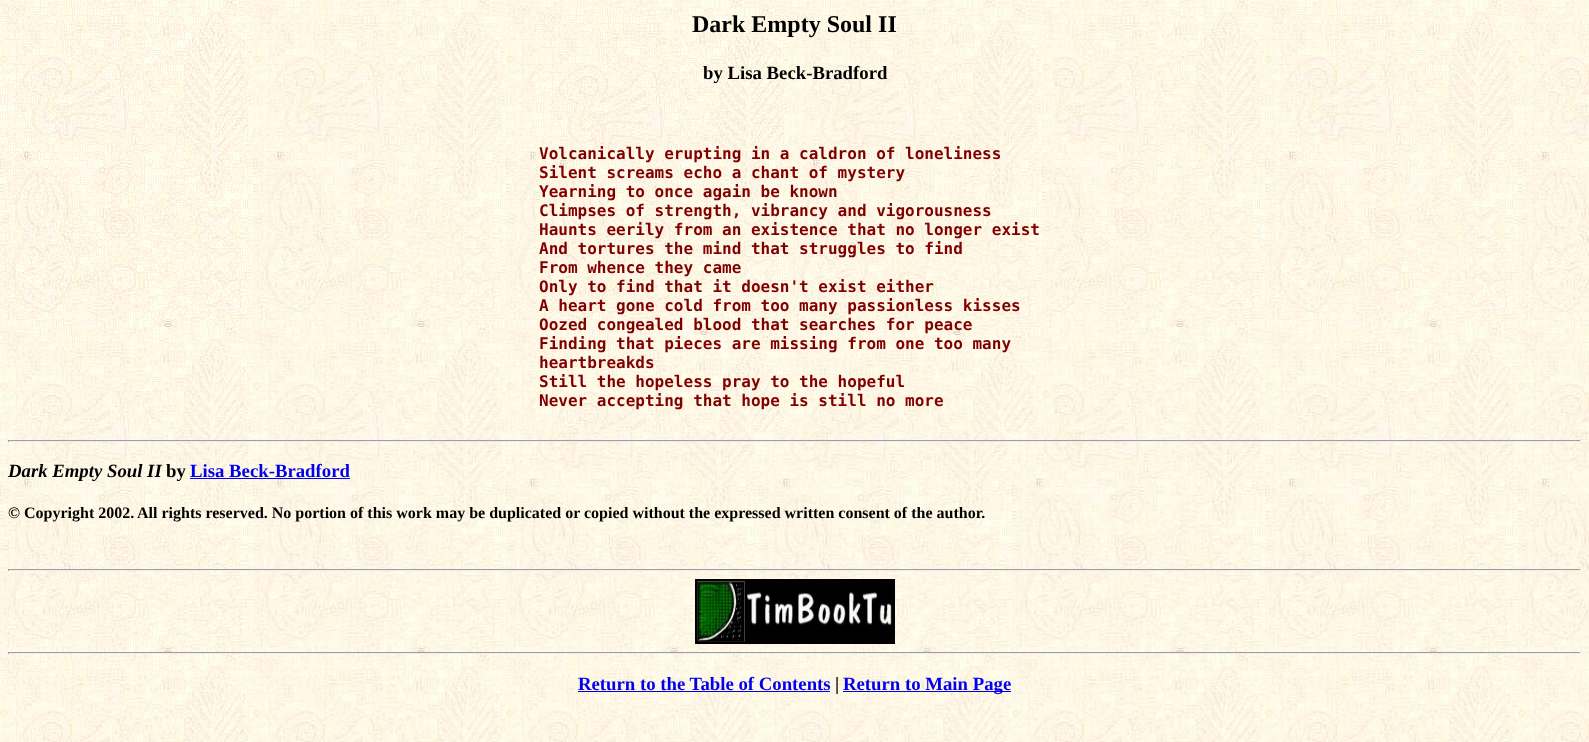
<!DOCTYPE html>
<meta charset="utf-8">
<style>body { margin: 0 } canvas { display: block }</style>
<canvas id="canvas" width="1589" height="742"></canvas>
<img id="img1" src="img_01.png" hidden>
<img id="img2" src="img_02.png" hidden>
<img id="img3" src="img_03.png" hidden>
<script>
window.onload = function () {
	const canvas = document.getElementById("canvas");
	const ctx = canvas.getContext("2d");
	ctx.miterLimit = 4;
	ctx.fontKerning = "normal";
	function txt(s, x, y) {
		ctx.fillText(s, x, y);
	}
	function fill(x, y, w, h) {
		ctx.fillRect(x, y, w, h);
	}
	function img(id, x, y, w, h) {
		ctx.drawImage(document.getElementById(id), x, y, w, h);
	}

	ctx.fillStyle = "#FFFFFF";
	fill(0, 0, 1589, 742);
	img("img1", 0, 0, 1589, 742);
	img("img2", 536, 8, 517, 424);
	ctx.fillStyle = "#9F9F9F";
	fill(8, 440, 1573, 1);
	ctx.fillStyle = "#EEEEEE";
	fill(1580, 440, 1, 2);
	fill(8, 441, 1573, 1);
	ctx.fillStyle = "#9F9F9F";
	fill(8, 440, 1, 2);
	ctx.fillStyle = "#0000EE";
	fill(190, 478, 160, 1);
	ctx.fillStyle = "#9F9F9F";
	fill(8, 569, 1573, 1);
	ctx.fillStyle = "#EEEEEE";
	fill(1580, 569, 1, 2);
	fill(8, 570, 1573, 1);
	ctx.fillStyle = "#9F9F9F";
	fill(8, 569, 1, 2);
	img("img3", 695, 579, 200, 65);
	fill(8, 652, 1573, 1);
	ctx.fillStyle = "#EEEEEE";
	fill(1580, 652, 1, 2);
	fill(8, 653, 1573, 1);
	ctx.fillStyle = "#9F9F9F";
	fill(8, 652, 1, 2);
	ctx.fillStyle = "#0000EE";
	fill(578, 691, 252, 1);
	fill(843, 691, 168, 1);
	ctx.font = "bold 24px Liberation Serif";
	ctx.fillStyle = "#000000";
	txt("Dark Empty Soul II", 692, 32);
	ctx.font = "bold 18.75px Liberation Serif";
	txt("by Lisa Beck-Bradford", 703, 79);
	ctx.font = "bold 16px DejaVu Sans Mono";
	ctx.fillStyle = "#800000";
	txt("Volcanically erupting in a caldron of loneliness", 539, 159);
	txt("Silent screams echo a chant of mystery", 539, 178);
	txt("Yearning to once again be known", 539, 197);
	txt("Climpses of strength, vibrancy and vigorousness", 539, 216);
	txt("Haunts eerily from an existence that no longer exist", 539, 235);
	txt("And tortures the mind that struggles to find", 539, 254);
	txt("From whence they came", 539, 273);
	txt("Only to find that it doesn't exist either", 539, 292);
	txt("A heart gone cold from too many passionless kisses", 539, 311);
	txt("Oozed congealed blood that searches for peace", 539, 330);
	txt("Finding that pieces are missing from one too many", 539, 349);
	txt("heartbreakds", 539, 368);
	txt("Still the hopeless pray to the hopeful", 539, 387);
	txt("Never accepting that hope is still no more", 539, 406);
	ctx.font = "italic bold 18.75px Liberation Serif";
	ctx.fillStyle = "#000000";
	txt("Dark Empty Soul II", 8, 477);
	ctx.font = "bold 18.75px Liberation Serif";
	txt("by", 166, 477);
	ctx.fillStyle = "#0000EE";
	txt("Lisa Beck-Bradford", 190, 477);
	ctx.font = "bold 16px Liberation Serif";
	ctx.fillStyle = "#000000";
	txt("©", 8, 518);
	txt("Copyright 2002.", 24, 518);
	txt("All rights reserved. No portion of this work may be duplicated or copied without the expressed written consent of the author.", 137, 518);
	ctx.font = "bold 18.75px Liberation Serif";
	ctx.fillStyle = "#0000EE";
	txt("Return to the Table of Contents", 578, 690);
	ctx.fillStyle = "#000000";
	txt("|", 835, 690);
	ctx.fillStyle = "#0000EE";
	txt("Return to Main Page", 843, 690);
};
</script>
